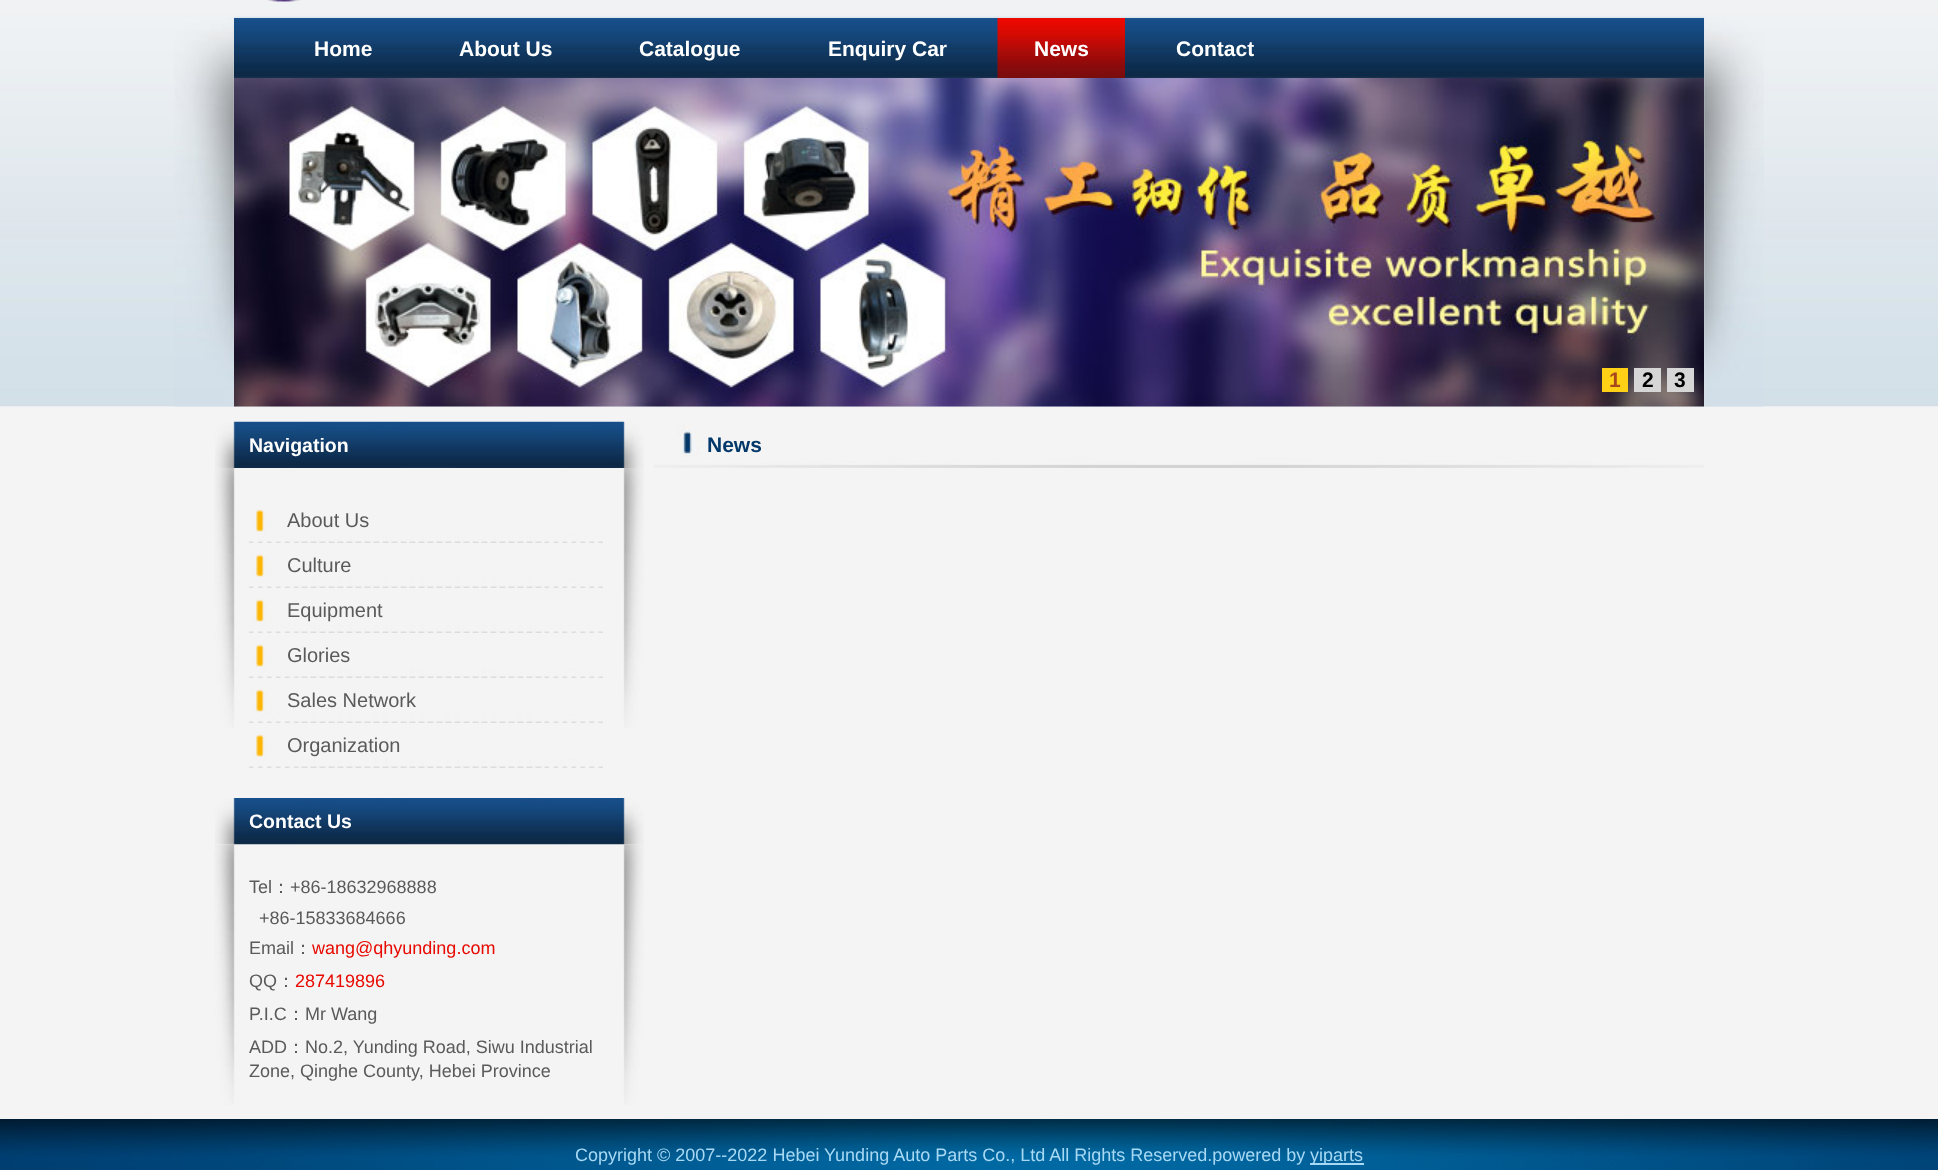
<!DOCTYPE html>
<meta charset="utf-8">
<style>body { margin: 0 } canvas { display: block }</style>
<canvas id="canvas" width="1938" height="1170"></canvas>
<img id="img1" src="img_01.png" hidden>
<img id="img2" src="img_02.png" hidden>
<img id="img3" src="img_03.png" hidden>
<img id="img4" src="img_04.png" hidden>
<img id="img5" src="img_05.png" hidden>
<img id="img6" src="img_06.png" hidden>
<img id="img7" src="img_07.png" hidden>
<img id="img8" src="img_08.png" hidden>
<img id="img9" src="img_09.png" hidden>
<img id="img10" src="img_10.png" hidden>
<img id="img11" src="img_11.png" hidden>
<img id="img12" src="img_12.png" hidden>
<img id="img13" src="img_13.png" hidden>
<script>
window.onload = function () {
	const canvas = document.getElementById("canvas");
	const ctx = canvas.getContext("2d");
	ctx.miterLimit = 4;
	ctx.fontKerning = "normal";
	function txt(s, x, y) {
		ctx.fillText(s, x, y);
	}
	function fill(x, y, w, h) {
		ctx.fillRect(x, y, w, h);
	}
	function img(id, x, y, w, h) {
		ctx.drawImage(document.getElementById(id), x, y, w, h);
	}

	ctx.fillStyle = "#FFFFFF";
	fill(0, 0, 1938, 1170);
	img("img1", 0, 0, 1938, 407);
	img("img2", 174, 16, 1590, 391);
	img("img3", 267, 0, 34, 2);
	img("img4", 234, 18, 1470, 60);
	img("img5", 997, 18, 128, 60);
	img("img6", 234, 78, 1470, 329);
	ctx.fillStyle = "#FFD116";
	fill(1602, 368, 26, 24);
	ctx.fillStyle = "#D7D6D7";
	fill(1634, 368, 27, 24);
	fill(1667, 368, 27, 24);
	ctx.fillStyle = "#F4F4F4";
	fill(0, 407, 1938, 712);
	img("img7", 215, 421, 429, 47);
	img("img8", 214, 468, 430, 260);
	img("img9", 249, 509, 354, 34);
	img("img9", 249, 554, 354, 34);
	img("img9", 249, 599, 354, 34);
	img("img9", 249, 644, 354, 34);
	img("img9", 249, 689, 354, 34);
	img("img9", 249, 734, 354, 34);
	img("img10", 215, 798, 429, 47);
	img("img11", 214, 844, 430, 261);
	img("img12", 654, 422, 1050, 46);
	img("img13", 0, 1119, 1938, 51);
	ctx.fillStyle = "#A7D9F4";
	fill(1310, 1163, 54, 2);
	ctx.font = "bold 21px Liberation Sans";
	ctx.fillStyle = "#FFFFFF";
	txt("Home", 314, 56);
	txt("About Us", 459, 56);
	txt("Catalogue", 639, 56);
	txt("Enquiry Car", 828, 56);
	txt("News", 1034, 56);
	txt("Contact", 1176, 56);
	ctx.fillStyle = "#A8471C";
	txt("1", 1609, 387);
	ctx.fillStyle = "#000000";
	txt("2", 1642, 387);
	txt("3", 1674, 387);
	ctx.font = "bold 19.5px Liberation Sans";
	ctx.fillStyle = "#FFFFFF";
	txt("Navigation", 249, 452);
	ctx.font = "20px Liberation Sans";
	ctx.fillStyle = "#5A5A5A";
	txt("About Us", 287, 527);
	txt("Culture", 287, 572);
	txt("Equipment", 287, 617);
	txt("Glories", 287, 662);
	txt("Sales Network", 287, 707);
	txt("Organization", 287, 752);
	ctx.font = "bold 19.5px Liberation Sans";
	ctx.fillStyle = "#FFFFFF";
	txt("Contact Us", 249, 828);
	ctx.font = "18px Liberation Sans";
	ctx.fillStyle = "#5A5A5A";
	txt("Tel", 249, 893);
	ctx.font = "500 18px WenQuanYi Zen Hei";
	txt("：", 272, 893);
	ctx.font = "18px Liberation Sans";
	txt("+86-18632968888", 290, 893);
	txt("+86-15833684666", 259, 924);
	txt("Email", 249, 954);
	ctx.font = "500 18px WenQuanYi Zen Hei";
	txt("：", 294, 954);
	ctx.font = "18px Liberation Sans";
	ctx.fillStyle = "#E80901";
	txt("wang@qhyunding.com", 312, 954);
	ctx.fillStyle = "#5A5A5A";
	txt("QQ", 249, 987);
	ctx.font = "500 18px WenQuanYi Zen Hei";
	txt("：", 277, 987);
	ctx.font = "18px Liberation Sans";
	ctx.fillStyle = "#E80901";
	txt("287419896", 295, 987);
	ctx.fillStyle = "#5A5A5A";
	txt("P.I.C", 249, 1020);
	ctx.font = "500 18px WenQuanYi Zen Hei";
	txt("：", 287, 1020);
	ctx.font = "18px Liberation Sans";
	txt("Mr Wang", 305, 1020);
	txt("ADD", 249, 1053);
	ctx.font = "500 18px WenQuanYi Zen Hei";
	txt("：", 287, 1053);
	ctx.font = "18px Liberation Sans";
	txt("No.2, Yunding Road, Siwu Industrial", 305, 1053);
	txt("Zone, Qinghe County, Hebei Province", 249, 1077);
	ctx.font = "bold 21px Liberation Sans";
	ctx.fillStyle = "#03386A";
	txt("News", 707, 452);
	ctx.font = "18px Liberation Sans";
	ctx.fillStyle = "#A7D9F4";
	txt("Copyright © 2007--2022 Hebei Yunding Auto Parts Co., Ltd All Rights Reserved.powered by", 575, 1161);
	txt("yiparts", 1310, 1161);
};
</script>
